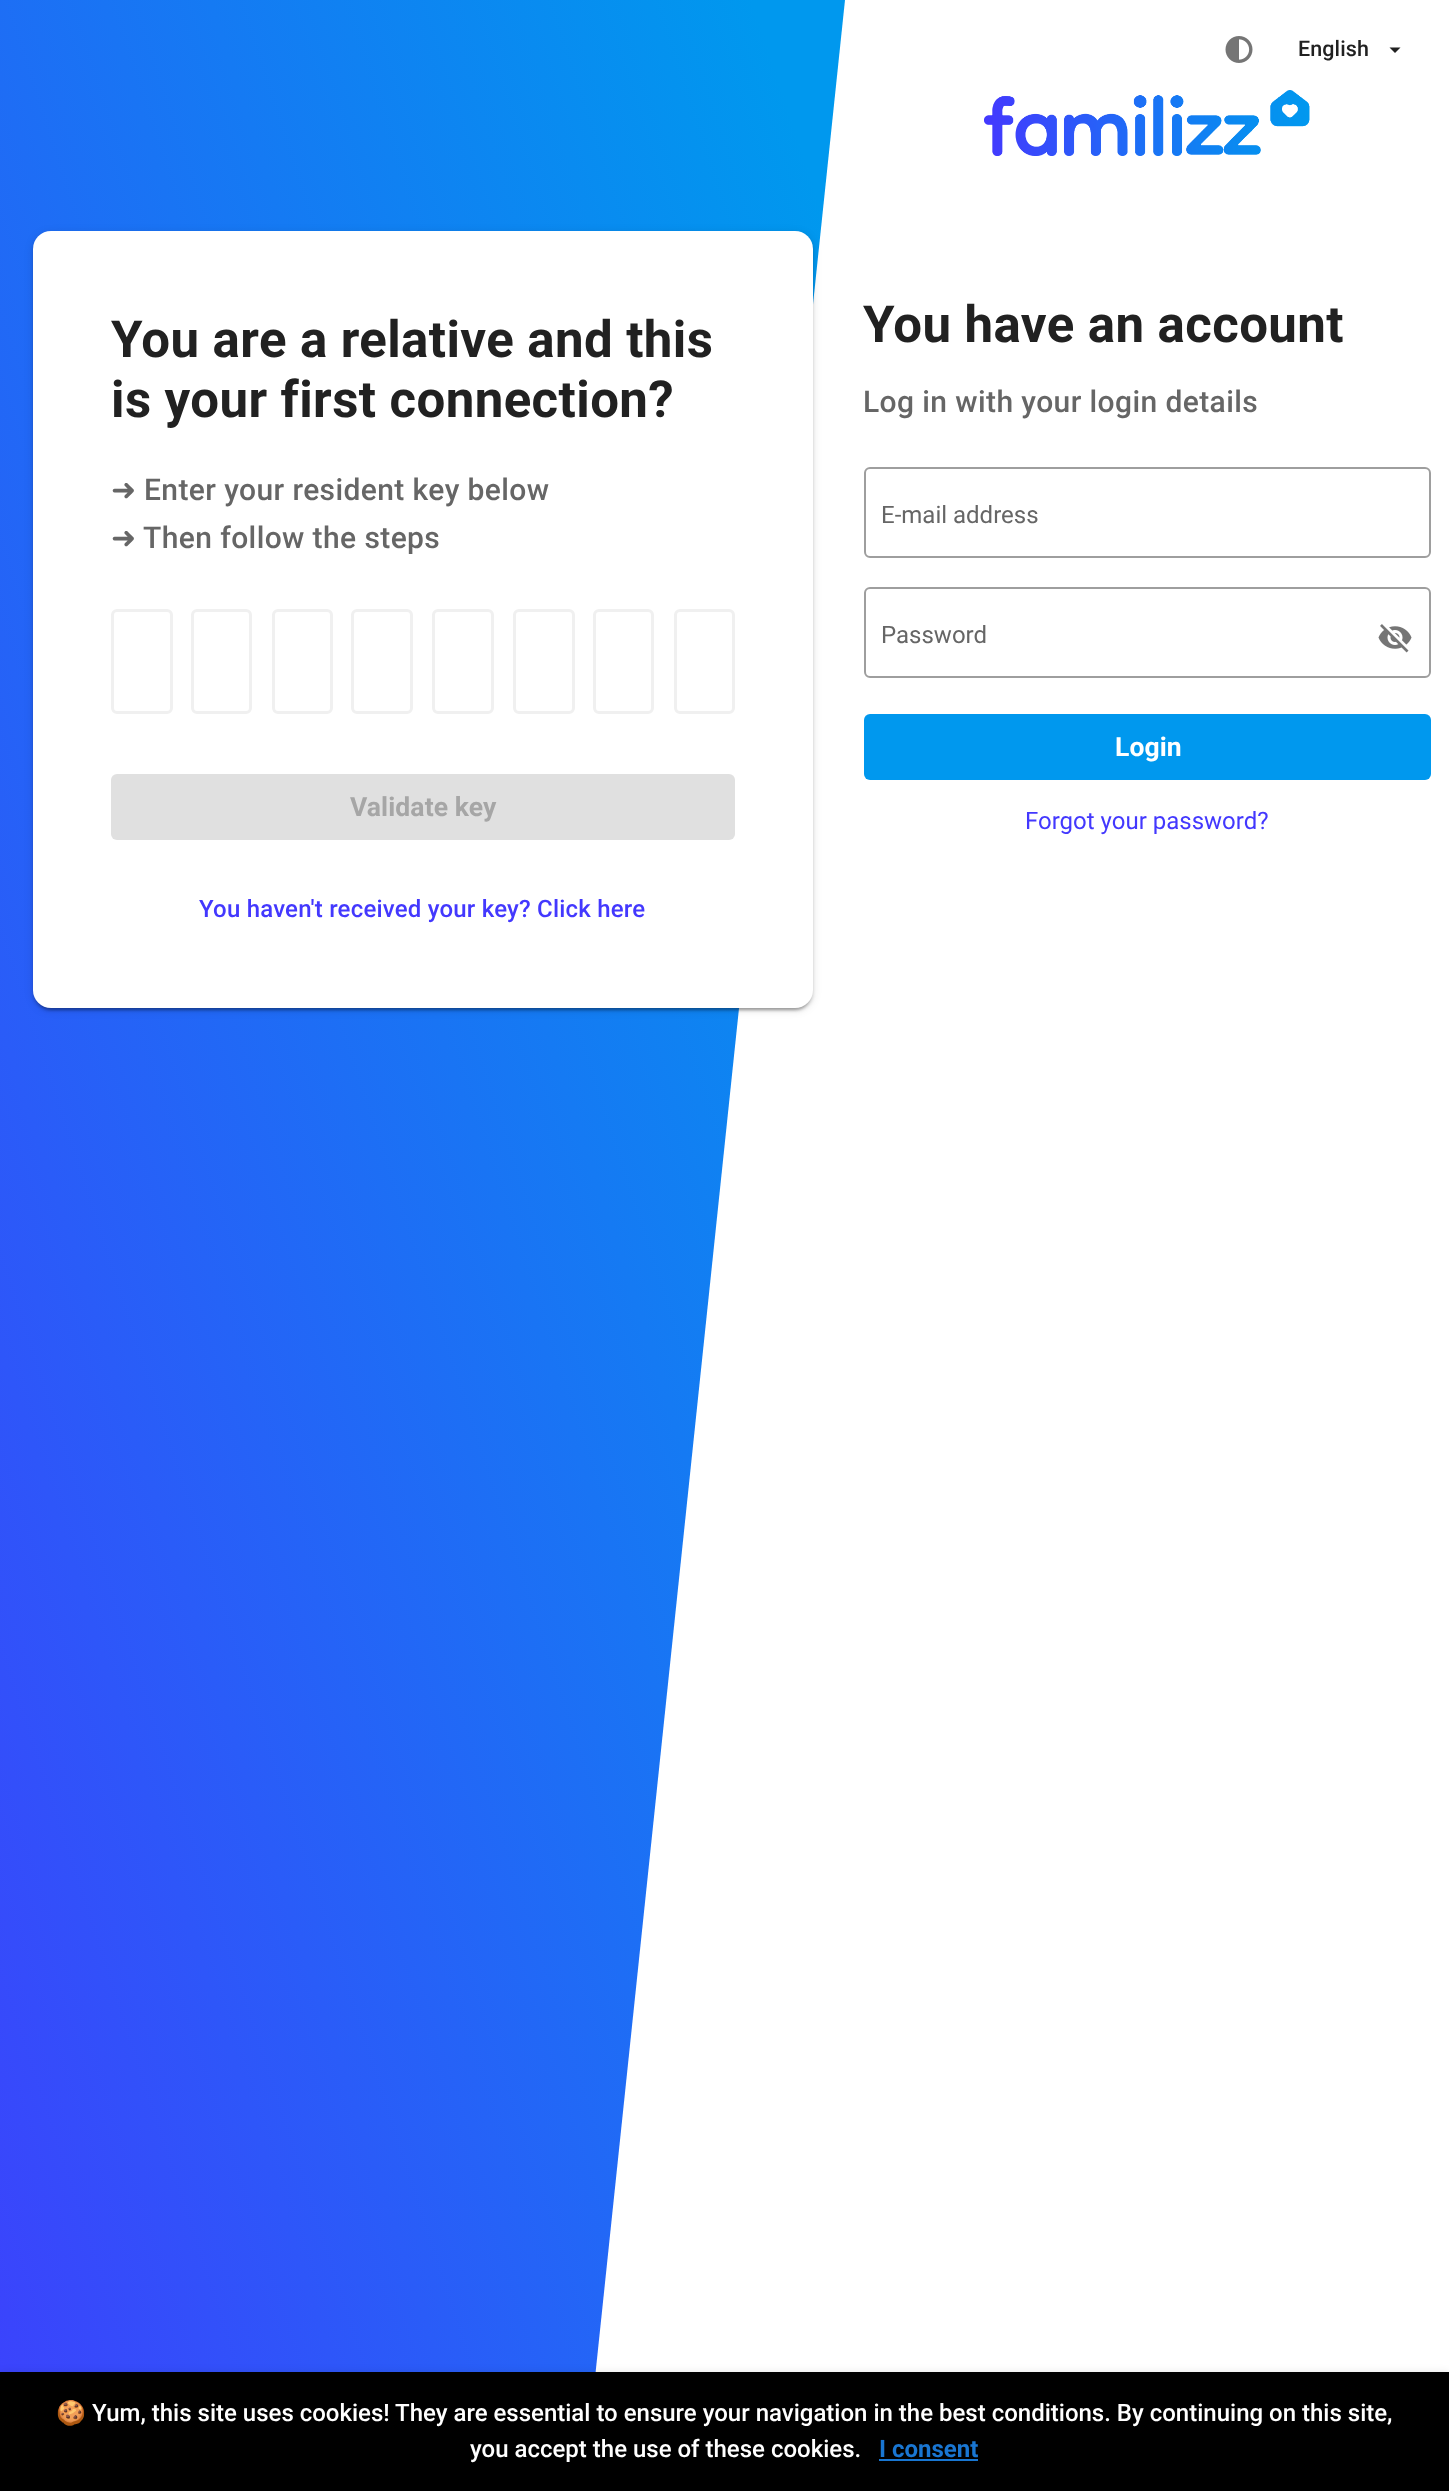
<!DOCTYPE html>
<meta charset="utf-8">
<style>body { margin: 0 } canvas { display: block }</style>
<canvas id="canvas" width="1449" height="2491"></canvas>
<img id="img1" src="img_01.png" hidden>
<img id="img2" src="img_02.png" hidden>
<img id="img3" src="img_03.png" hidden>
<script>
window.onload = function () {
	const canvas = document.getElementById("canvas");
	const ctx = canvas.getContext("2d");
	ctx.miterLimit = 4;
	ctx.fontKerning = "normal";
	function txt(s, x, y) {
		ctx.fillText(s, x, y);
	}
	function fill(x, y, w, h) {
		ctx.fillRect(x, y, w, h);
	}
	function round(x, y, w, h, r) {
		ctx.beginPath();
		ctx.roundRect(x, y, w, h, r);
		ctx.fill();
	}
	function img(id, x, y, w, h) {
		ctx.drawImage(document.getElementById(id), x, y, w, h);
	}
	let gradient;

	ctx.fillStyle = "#FFFFFF";
	fill(0, 0, 1449, 2491);
	img("img1", 1225, 36, 28, 27);
	ctx.fillStyle = "#212121";
	ctx.beginPath();
	ctx.moveTo(1389.5, 47.5);
	ctx.lineTo(1395, 53);
	ctx.lineTo(1400.5, 47.5);
	ctx.closePath();
	ctx.fill();
	gradient = ctx.createLinearGradient(-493, 1503, 1077, 989);
	gradient.addColorStop(0, "#4338FE");
	gradient.addColorStop(1, "#0098EE");
	ctx.fillStyle = gradient;
	ctx.beginPath();
	ctx.moveTo(0, 0);
	ctx.lineTo(845, 0);
	ctx.lineTo(583, 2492);
	ctx.lineTo(-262, 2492);
	ctx.closePath();
	ctx.fill();
	ctx.fillStyle = "rgba(0, 0, 0, 0.12)";
	ctx.filter = "blur(4px)";
	ctx.beginPath();
	ctx.roundRect(33, 233, 780, 777, 18);
	ctx.fill();
	ctx.filter = "none";
	ctx.fillStyle = "rgba(0, 0, 0, 0.14)";
	ctx.filter = "blur(1.5px)";
	ctx.beginPath();
	ctx.roundRect(33, 234, 780, 777, 18);
	ctx.fill();
	ctx.filter = "none";
	ctx.fillStyle = "rgba(0, 0, 0, 0.2)";
	ctx.filter = "blur(1px)";
	ctx.beginPath();
	ctx.roundRect(36, 239, 774, 771, 15);
	ctx.fill();
	ctx.filter = "none";
	ctx.fillStyle = "#FFFFFF";
	round(33, 231, 780, 777, 18);
	ctx.beginPath();
	ctx.roundRect(112.5, 610.5, 59, 102, 4.5);
	ctx.strokeStyle = "#F0F0F0";
	ctx.lineWidth = 3;
	ctx.stroke();
	ctx.beginPath();
	ctx.roundRect(192.5, 610.5, 58, 102, 4.5);
	ctx.stroke();
	ctx.beginPath();
	ctx.roundRect(273.5, 610.5, 58, 102, 4.5);
	ctx.stroke();
	ctx.beginPath();
	ctx.roundRect(352.5, 610.5, 59, 102, 4.5);
	ctx.stroke();
	ctx.beginPath();
	ctx.roundRect(433.5, 610.5, 59, 102, 4.5);
	ctx.stroke();
	ctx.beginPath();
	ctx.roundRect(514.5, 610.5, 59, 102, 4.5);
	ctx.stroke();
	ctx.beginPath();
	ctx.roundRect(594.5, 610.5, 58, 102, 4.5);
	ctx.stroke();
	ctx.beginPath();
	ctx.roundRect(675.5, 610.5, 58, 102, 4.5);
	ctx.stroke();
	ctx.fillStyle = "#E0E0E0";
	round(111, 774, 624, 66, 6);
	img("img2", 984, 90, 326, 66);
	ctx.beginPath();
	ctx.roundRect(865, 468, 565, 89, 5);
	ctx.strokeStyle = "#9E9E9E";
	ctx.lineWidth = 2;
	ctx.stroke();
	ctx.beginPath();
	ctx.roundRect(865, 588, 565, 89, 5);
	ctx.stroke();
	img("img3", 1378, 624, 34, 29);
	ctx.fillStyle = "#0098EE";
	round(864, 714, 567, 66, 6);
	ctx.fillStyle = "rgba(0, 0, 0, 0.12)";
	ctx.filter = "blur(4px)";
	ctx.beginPath();
	ctx.rect(0, 2373, 1449, 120);
	ctx.fill();
	ctx.filter = "none";
	ctx.fillStyle = "#000000";
	fill(0, 2372, 1449, 119);
	ctx.fillStyle = "#1976D2";
	fill(879, 2459, 99, 2);
	ctx.letterSpacing = "0.1px";
	ctx.font = "500 21.5px Roboto";
	ctx.fillStyle = "#212121";
	txt("English", 1298, 56);
	ctx.letterSpacing = "0.4px";
	ctx.font = "bold 51px Roboto";
	txt("You are a relative and this", 111, 357);
	txt("is your first connection?", 111, 417);
	ctx.font = "30px DejaVu Sans";
	ctx.fillStyle = "#666666";
	txt("➜", 111, 500);
	ctx.font = "500 30px Roboto";
	txt("Enter your resident key below", 144, 500);
	ctx.font = "30px DejaVu Sans";
	txt("➜", 111, 548);
	ctx.font = "500 30px Roboto";
	txt("Then follow the steps", 143, 548);
	ctx.letterSpacing = "0.1px";
	ctx.font = "bold 26.5px Roboto";
	ctx.fillStyle = "#A6A6A6";
	txt("Validate key", 350, 816);
	ctx.letterSpacing = "0.2px";
	ctx.font = "500 24px Roboto";
	ctx.fillStyle = "#4338FE";
	txt("You haven't received your key? Click here", 199, 917);
	ctx.letterSpacing = "0.4px";
	ctx.font = "bold 51px Roboto";
	ctx.fillStyle = "#212121";
	txt("You have an account", 863, 342);
	ctx.font = "500 30px Roboto";
	ctx.fillStyle = "#666666";
	txt("Log in with your login details", 863, 412);
	ctx.letterSpacing = "0px";
	ctx.font = "24px Roboto";
	txt("E-mail address", 881, 523);
	txt("Password", 881, 643);
	ctx.letterSpacing = "0.1px";
	ctx.font = "bold 26.5px Roboto";
	ctx.fillStyle = "#FFFFFF";
	txt("Login", 1115, 756);
	ctx.letterSpacing = "0px";
	ctx.font = "24px Roboto";
	ctx.fillStyle = "#4338FE";
	txt("Forgot your password?", 1025, 829);
	ctx.font = "24px Noto Color Emoji";
	ctx.fillStyle = "#FFFFFF";
	txt("🍪", 56, 2421);
	ctx.font = "500 24px Roboto";
	txt("Yum, this site uses cookies! They are essential to ensure your navigation in the best conditions. By continuing on this site,", 92, 2421);
	txt("you accept the use of these cookies.", 470, 2457);
	ctx.font = "bold 24px Roboto";
	ctx.fillStyle = "#1976D2";
	txt("I consent", 879, 2457);
};
</script>
